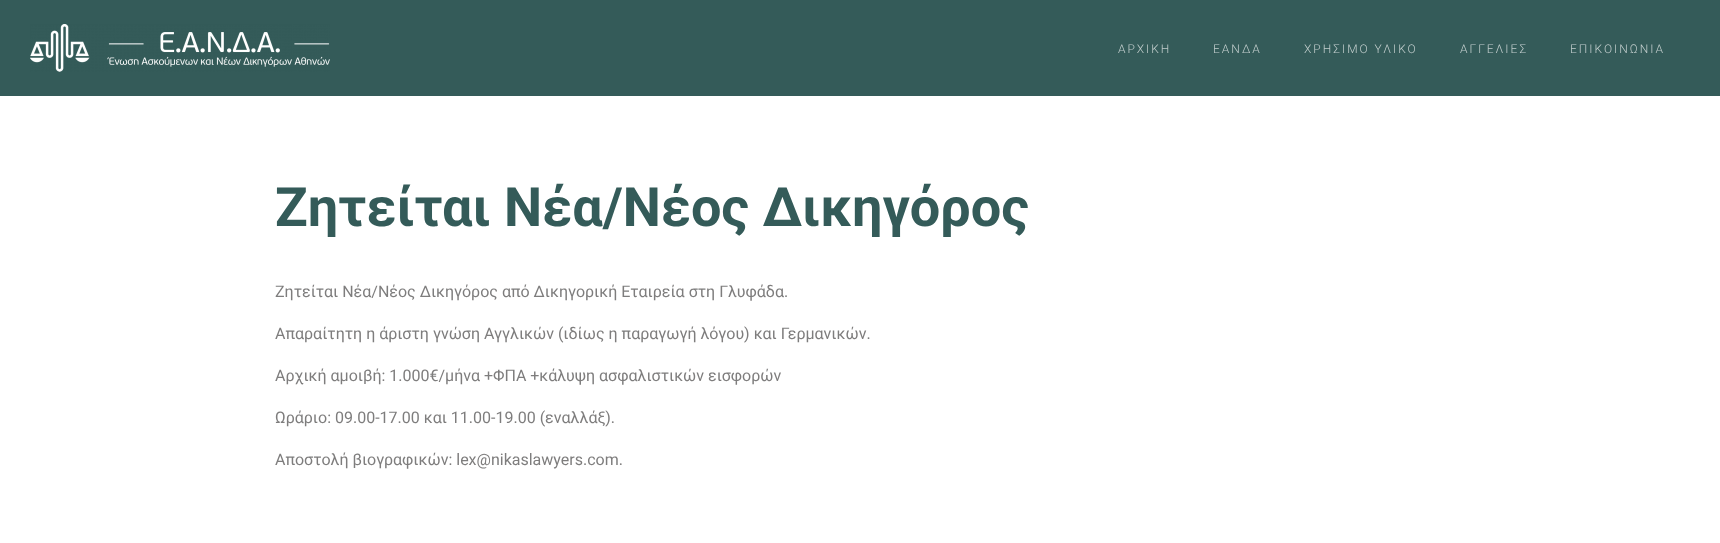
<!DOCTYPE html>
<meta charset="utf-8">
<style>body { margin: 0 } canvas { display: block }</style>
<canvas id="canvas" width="1720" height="543"></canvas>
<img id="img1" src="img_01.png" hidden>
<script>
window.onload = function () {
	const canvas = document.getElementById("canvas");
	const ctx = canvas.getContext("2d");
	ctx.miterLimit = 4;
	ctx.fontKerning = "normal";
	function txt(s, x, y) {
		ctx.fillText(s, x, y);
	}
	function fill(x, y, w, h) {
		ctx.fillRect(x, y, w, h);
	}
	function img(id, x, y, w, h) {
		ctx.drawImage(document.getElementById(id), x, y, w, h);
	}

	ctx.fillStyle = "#FFFFFF";
	fill(0, 0, 1720, 543);
	ctx.fillStyle = "#345B59";
	fill(0, 0, 1720, 96);
	img("img1", 30, 24, 300, 48);
	ctx.letterSpacing = "2px";
	ctx.font = "300 12px Roboto";
	ctx.fillStyle = "#C2CECD";
	txt("ΑΡΧΙΚΗ", 1118, 53);
	txt("ΕΑΝΔΑ", 1213, 53);
	txt("ΧΡΗΣΙΜΟ ΥΛΙΚΟ", 1304, 53);
	txt("ΑΓΓΕΛΙΕΣ", 1460, 53);
	txt("ΕΠΙΚΟΙΝΩΝΙΑ", 1570, 53);
	ctx.letterSpacing = "0px";
	ctx.font = "bold 54px Roboto";
	ctx.fillStyle = "#345B59";
	txt("Ζητείται Νέα/Νέος Δικηγόρος", 275, 226);
	ctx.font = "16px Roboto";
	ctx.fillStyle = "#7E7D7D";
	txt("Ζητείται Νέα/Νέος Δικηγόρος από Δικηγορική Εταιρεία στη Γλυφάδα.", 275, 297);
	txt("Απαραίτητη η άριστη γνώση Αγγλικών (ιδίως η παραγωγή λόγου) και Γερμανικών.", 275, 339);
	txt("Αρχική αμοιβή: 1.000€/μήνα +ΦΠΑ +κάλυψη ασφαλιστικών εισφορών", 275, 381);
	txt("Ωράριο: 09.00-17.00 και 11.00-19.00 (εναλλάξ).", 275, 423);
	txt("Αποστολή βιογραφικών: lex@nikaslawyers.com.", 275, 465);
};
</script>
